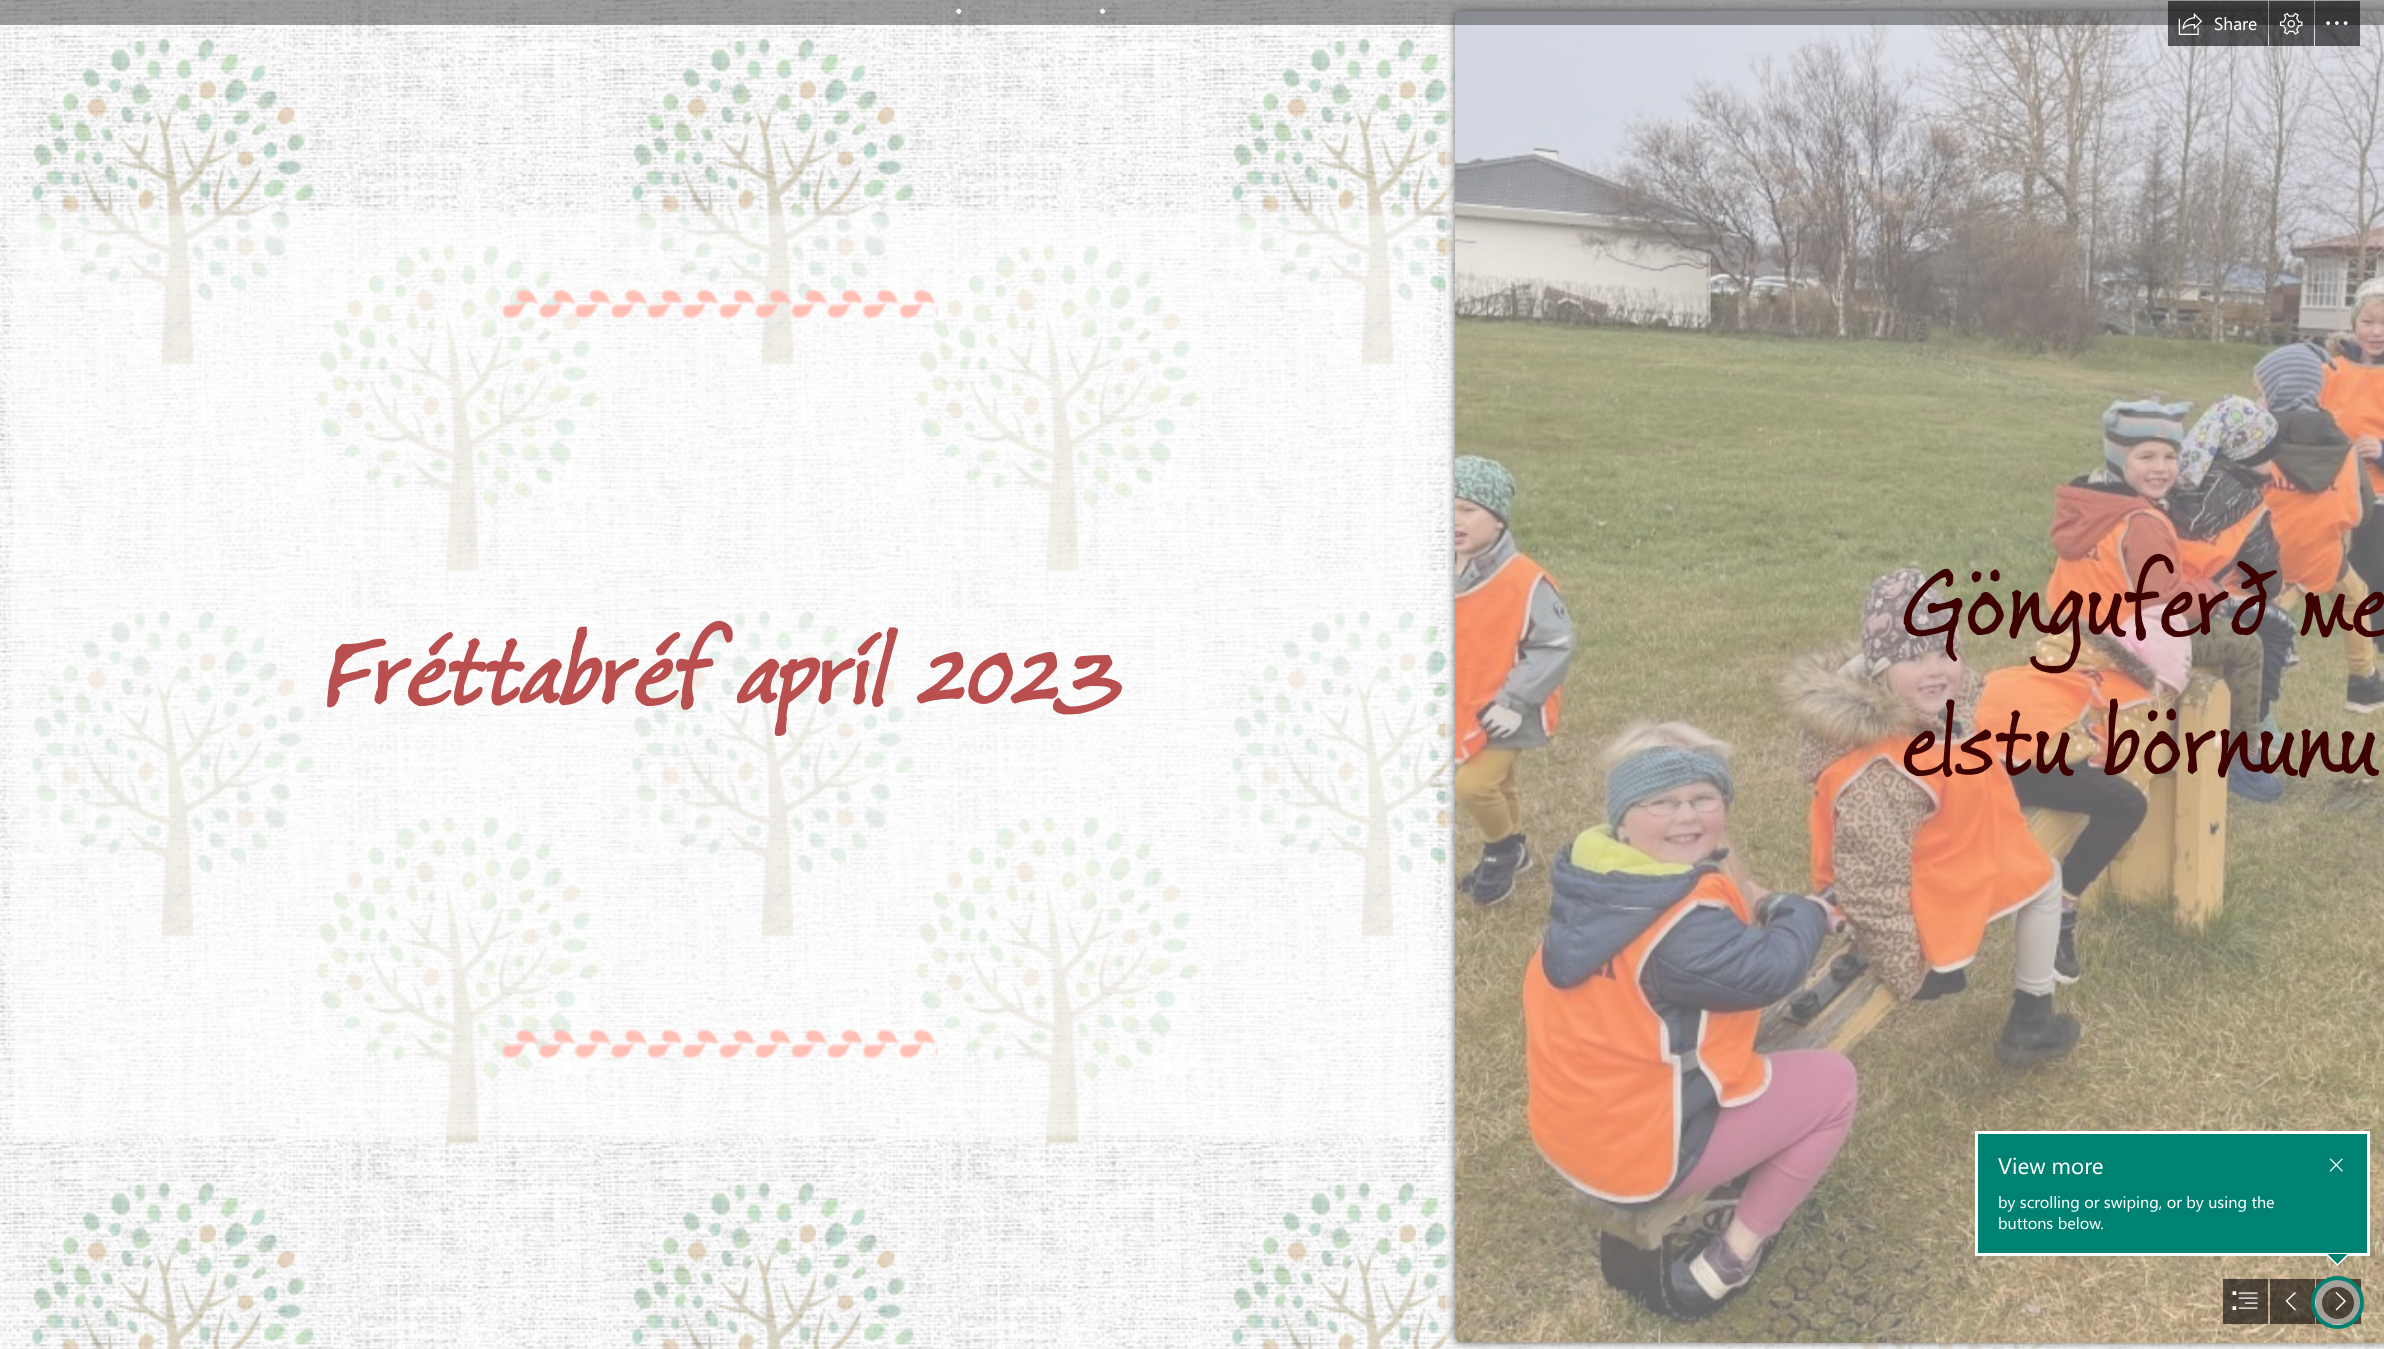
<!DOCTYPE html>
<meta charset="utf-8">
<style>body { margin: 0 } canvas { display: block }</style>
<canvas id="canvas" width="2384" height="1349"></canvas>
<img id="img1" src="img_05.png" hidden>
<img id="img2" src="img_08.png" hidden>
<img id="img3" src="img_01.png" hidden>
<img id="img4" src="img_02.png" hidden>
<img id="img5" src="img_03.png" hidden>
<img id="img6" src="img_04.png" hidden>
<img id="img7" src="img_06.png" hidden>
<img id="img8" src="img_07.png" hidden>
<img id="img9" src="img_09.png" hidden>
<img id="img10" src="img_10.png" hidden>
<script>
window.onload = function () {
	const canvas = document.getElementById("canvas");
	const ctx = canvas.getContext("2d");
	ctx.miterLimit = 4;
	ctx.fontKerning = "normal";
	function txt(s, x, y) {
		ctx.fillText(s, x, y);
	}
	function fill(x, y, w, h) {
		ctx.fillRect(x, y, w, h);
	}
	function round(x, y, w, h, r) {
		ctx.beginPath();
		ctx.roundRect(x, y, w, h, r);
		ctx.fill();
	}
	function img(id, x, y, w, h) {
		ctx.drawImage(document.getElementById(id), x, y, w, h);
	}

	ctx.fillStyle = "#FFFFFF";
	fill(0, 0, 2384, 1349);
	img("img1", 0, 0, 2384, 1349);
	ctx.fillStyle = "#000000";
	ctx.filter = "blur(4.5px)";
	ctx.beginPath();
	ctx.roundRect(1455, 11, 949, 1332, 6);
	ctx.fill();
	ctx.filter = "none";
	img("img2", 1455, 11, 929, 1332);
	ctx.save();
	ctx.beginPath();
	ctx.moveTo(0, 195);
	ctx.lineTo(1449, 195);
	ctx.lineTo(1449, 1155);
	ctx.lineTo(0, 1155);
	ctx.closePath();
	ctx.moveTo(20, 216);
	ctx.lineTo(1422, 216);
	ctx.bezierCurveTo(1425.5, 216, 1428, 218.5, 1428, 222);
	ctx.lineTo(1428, 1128);
	ctx.bezierCurveTo(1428, 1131.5, 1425.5, 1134, 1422, 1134);
	ctx.lineTo(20, 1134);
	ctx.bezierCurveTo(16.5, 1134, 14, 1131.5, 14, 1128);
	ctx.lineTo(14, 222);
	ctx.bezierCurveTo(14, 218.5, 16.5, 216, 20, 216);
	ctx.closePath();
	ctx.clip("evenodd");
	ctx.fillStyle = "#FFFFFF";
	ctx.filter = "blur(6.5px)";
	ctx.beginPath();
	ctx.roundRect(14, 216, 1414, 918, 6);
	ctx.fill();
	ctx.filter = "none";
	ctx.restore();
	ctx.fillStyle = "rgba(250, 251, 253, 0.4)";
	fill(1445, 1, 939, 1348);
	ctx.fillStyle = "rgba(64, 64, 64, 0.5)";
	fill(0, 0, 2384, 25);
	ctx.fillStyle = "rgba(0, 0, 0, 0.6)";
	fill(2168, 1, 100, 45);
	img("img3", 2178, 13, 24, 22);
	fill(2269, 1, 45, 45);
	img("img4", 2280, 12, 23, 23);
	fill(2315, 1, 45, 45);
	img("img5", 2326, 21, 22, 4);
	img("img6", 956, 8, 150, 6);
	ctx.fillStyle = "rgba(255, 255, 255, 0.6)";
	round(14, 216, 1414, 918, 6);
	img("img7", 502, 289, 437, 30);
	img("img8", 502, 1029, 437, 30);
	ctx.fillStyle = "#008272";
	ctx.beginPath();
	ctx.rect(1976.5, 1132.5, 392, 122);
	ctx.fill();
	ctx.strokeStyle = "#FFFFFF";
	ctx.lineWidth = 3;
	ctx.stroke();
	img("img9", 2329, 1158, 14, 14);
	ctx.fillStyle = "#FFFFFF";
	ctx.beginPath();
	ctx.moveTo(2325, 1254);
	ctx.lineTo(2350, 1254);
	ctx.lineTo(2337.5, 1266);
	ctx.closePath();
	ctx.fill();
	ctx.fillStyle = "#008272";
	ctx.beginPath();
	ctx.moveTo(2327.5, 1254);
	ctx.lineTo(2347.5, 1254);
	ctx.lineTo(2337.5, 1264);
	ctx.closePath();
	ctx.fill();
	ctx.fillStyle = "rgba(0, 0, 0, 0.6)";
	fill(2270, 1279, 45, 45);
	fill(2316, 1279, 45, 45);
	ctx.fillStyle = "#FFFFFF";
	ctx.beginPath();
	ctx.moveTo(2336.5, 1310.5);
	ctx.lineTo(2335.5, 1309.5);
	ctx.lineTo(2344, 1301);
	ctx.lineTo(2335.5, 1293);
	ctx.lineTo(2336.5, 1292);
	ctx.lineTo(2346, 1301);
	ctx.closePath();
	ctx.fill();
	ctx.beginPath();
	ctx.arc(2338, 1303, 20.5, 0, Math.PI * 2);
	ctx.strokeStyle = "rgba(255, 255, 255, 0.5)";
	ctx.lineWidth = 9;
	ctx.stroke();
	ctx.beginPath();
	ctx.arc(2337.5, 1302.5, 24.5, 0, Math.PI * 2);
	ctx.strokeStyle = "#008272";
	ctx.lineWidth = 4;
	ctx.stroke();
	ctx.fillStyle = "rgba(0, 0, 0, 0.6)";
	fill(2223, 1279, 45, 45);
	img("img10", 2232, 1291, 26, 19);
	ctx.fillStyle = "#FFFFFF";
	ctx.beginPath();
	ctx.moveTo(2285.5, 1301);
	ctx.lineTo(2295, 1292);
	ctx.lineTo(2296, 1293);
	ctx.lineTo(2287.5, 1301);
	ctx.lineTo(2296, 1309.5);
	ctx.lineTo(2295, 1310.5);
	ctx.closePath();
	ctx.fill();
	ctx.font = "17.5px Segoe UI";
	txt("Share", 2214, 30);
	ctx.font = "italic bold 103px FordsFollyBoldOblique";
	ctx.fillStyle = "#BA4F4F";
	txt("Fréttabréf apríl 2023", 318, 703);
	ctx.font = "103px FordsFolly";
	ctx.fillStyle = "#3E0101";
	txt("Gönguferð me", 1900, 635);
	txt("elstu börnunu", 1901, 774);
	ctx.font = "22.5px Segoe UI";
	ctx.fillStyle = "#FFFFFF";
	txt("View more", 1998, 1174);
	ctx.font = "16.25px Segoe UI";
	txt("by scrolling or swiping, or by using the", 1998, 1208);
	txt("buttons below.", 1998, 1229);
};
</script>
